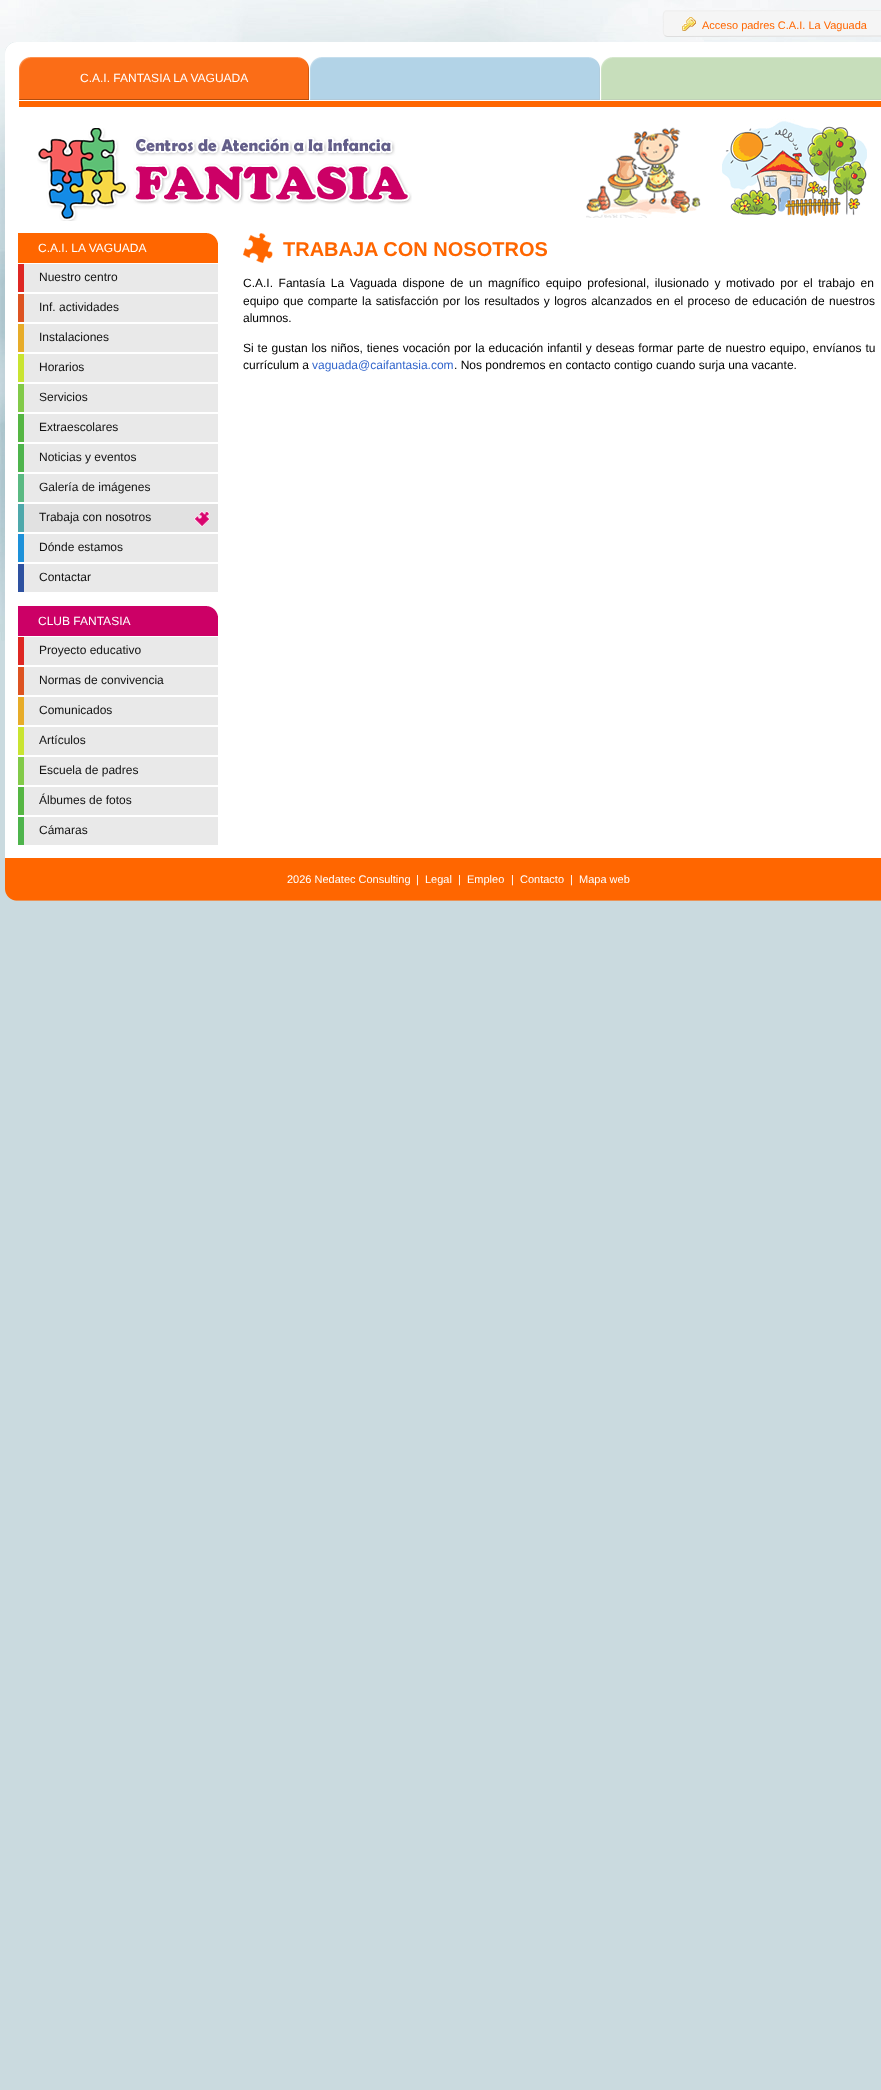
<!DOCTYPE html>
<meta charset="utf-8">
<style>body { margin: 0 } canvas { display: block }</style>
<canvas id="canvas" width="881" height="2090"></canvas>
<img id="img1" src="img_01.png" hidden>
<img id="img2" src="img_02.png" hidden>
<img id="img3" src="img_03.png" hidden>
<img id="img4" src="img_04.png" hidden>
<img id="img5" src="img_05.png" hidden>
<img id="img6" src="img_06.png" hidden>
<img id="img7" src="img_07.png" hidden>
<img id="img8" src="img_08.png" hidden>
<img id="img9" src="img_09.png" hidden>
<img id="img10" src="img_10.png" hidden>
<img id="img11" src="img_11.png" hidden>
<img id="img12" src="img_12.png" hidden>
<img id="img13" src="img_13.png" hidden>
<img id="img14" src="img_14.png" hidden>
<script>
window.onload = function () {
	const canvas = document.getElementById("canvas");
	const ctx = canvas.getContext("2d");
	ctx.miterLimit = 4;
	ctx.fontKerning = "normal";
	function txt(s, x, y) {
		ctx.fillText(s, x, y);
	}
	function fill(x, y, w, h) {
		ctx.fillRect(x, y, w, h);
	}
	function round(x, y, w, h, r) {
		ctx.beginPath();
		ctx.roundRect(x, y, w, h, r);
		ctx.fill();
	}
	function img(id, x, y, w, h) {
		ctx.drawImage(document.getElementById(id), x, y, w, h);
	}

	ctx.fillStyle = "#CADADF";
	fill(0, 0, 881, 2090);
	img("img1", 0, 0, 881, 641);
	ctx.fillStyle = "#F5F5F5";
	round(663, 10, 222, 27, 4);
	ctx.beginPath();
	ctx.moveTo(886.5, 11.5);
	ctx.bezierCurveTo(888.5, 13.5, 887.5, 21, 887.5, 23.5);
	ctx.bezierCurveTo(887.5, 26.5, 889, 34.5, 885.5, 36);
	ctx.lineTo(667, 36.5);
	ctx.lineTo(664.5, 35.5);
	ctx.strokeStyle = "#DEDEDE";
	ctx.stroke();
	ctx.beginPath();
	ctx.moveTo(664.5, 35.5);
	ctx.bezierCurveTo(662.5, 33.5, 663.5, 26, 663.5, 23.5);
	ctx.bezierCurveTo(663.5, 20.5, 662, 12.5, 665.5, 11);
	ctx.lineTo(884, 10.5);
	ctx.lineTo(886.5, 11.5);
	ctx.strokeStyle = "#EEEEEE";
	ctx.stroke();
	img("img2", 682, 17, 14, 14);
	img("img3", 5, 42, 876, 14);
	ctx.fillStyle = "#FFFFFF";
	fill(5, 56, 876, 167);
	img("img4", 19, 57, 290, 43);
	img("img5", 310, 57, 290, 43);
	img("img6", 601, 57, 280, 43);
	ctx.fillStyle = "#FF6600";
	fill(19, 101, 862, 6);
	img("img7", 37, 128, 375, 93);
	img("img8", 586, 127, 115, 91);
	img("img9", 722, 118, 145, 98);
	ctx.fillStyle = "#FFFFFF";
	fill(5, 223, 876, 635);
	ctx.fillStyle = "#FF6600";
	fill(18, 233, 200, 30);
	img("img10", 207, 233, 11, 10);
	ctx.fillStyle = "#E9E9E9";
	fill(24, 264, 194, 28);
	ctx.fillStyle = "#DE2723";
	fill(18, 264, 6, 28);
	ctx.fillStyle = "#E9E9E9";
	fill(24, 294, 194, 28);
	ctx.fillStyle = "#DD5321";
	fill(18, 294, 6, 28);
	ctx.fillStyle = "#E9E9E9";
	fill(24, 324, 194, 28);
	ctx.fillStyle = "#E7AC29";
	fill(18, 324, 6, 28);
	ctx.fillStyle = "#E9E9E9";
	fill(24, 354, 194, 28);
	ctx.fillStyle = "#C9E431";
	fill(18, 354, 6, 28);
	ctx.fillStyle = "#E9E9E9";
	fill(24, 384, 194, 28);
	ctx.fillStyle = "#82CA48";
	fill(18, 384, 6, 28);
	ctx.fillStyle = "#E9E9E9";
	fill(24, 414, 194, 28);
	ctx.fillStyle = "#55B643";
	fill(18, 414, 6, 28);
	ctx.fillStyle = "#E9E9E9";
	fill(24, 444, 194, 28);
	ctx.fillStyle = "#4EB44C";
	fill(18, 444, 6, 28);
	ctx.fillStyle = "#E9E9E9";
	fill(24, 474, 194, 28);
	ctx.fillStyle = "#5AB982";
	fill(18, 474, 6, 28);
	ctx.fillStyle = "#E1E1E1";
	fill(24, 504, 194, 28);
	img("img11", 194, 511, 16, 16);
	ctx.fillStyle = "#4EA8AB";
	fill(18, 504, 6, 28);
	ctx.fillStyle = "#E9E9E9";
	fill(24, 534, 194, 28);
	ctx.fillStyle = "#1D91D9";
	fill(18, 534, 6, 28);
	ctx.fillStyle = "#E9E9E9";
	fill(24, 564, 194, 28);
	ctx.fillStyle = "#2E51A0";
	fill(18, 564, 6, 28);
	ctx.fillStyle = "#CC0066";
	fill(18, 606, 200, 30);
	img("img12", 207, 606, 11, 10);
	ctx.fillStyle = "#E9E9E9";
	fill(24, 637, 194, 28);
	ctx.fillStyle = "#DE2723";
	fill(18, 637, 6, 28);
	ctx.fillStyle = "#E9E9E9";
	fill(24, 667, 194, 28);
	ctx.fillStyle = "#DD5321";
	fill(18, 667, 6, 28);
	ctx.fillStyle = "#E9E9E9";
	fill(24, 697, 194, 28);
	ctx.fillStyle = "#E7AC29";
	fill(18, 697, 6, 28);
	ctx.fillStyle = "#E9E9E9";
	fill(24, 727, 194, 28);
	ctx.fillStyle = "#C9E431";
	fill(18, 727, 6, 28);
	ctx.fillStyle = "#E9E9E9";
	fill(24, 757, 194, 28);
	ctx.fillStyle = "#82CA48";
	fill(18, 757, 6, 28);
	ctx.fillStyle = "#E9E9E9";
	fill(24, 787, 194, 28);
	ctx.fillStyle = "#55B643";
	fill(18, 787, 6, 28);
	ctx.fillStyle = "#E9E9E9";
	fill(24, 817, 194, 28);
	ctx.fillStyle = "#4EB44C";
	fill(18, 817, 6, 28);
	img("img13", 243, 233, 30, 30);
	img("img14", 5, 858, 876, 43);
	ctx.font = "11px Liberation Sans";
	ctx.fillStyle = "#FF6600";
	txt("Acceso padres C.A.I. La Vaguada", 702, 29);
	ctx.font = "12px Liberation Sans";
	ctx.fillStyle = "#FFFFFF";
	txt("C.A.I. FANTASIA LA VAGUADA", 80, 82);
	txt("C.A.I. LA VAGUADA", 38, 252);
	ctx.fillStyle = "#111111";
	txt("Nuestro centro", 39, 281);
	txt("Inf. actividades", 39, 311);
	txt("Instalaciones", 39, 341);
	txt("Horarios", 39, 371);
	txt("Servicios", 39, 401);
	txt("Extraescolares", 39, 431);
	txt("Noticias y eventos", 39, 461);
	txt("Galería de imágenes", 39, 491);
	txt("Trabaja con nosotros", 39, 521);
	txt("Dónde estamos", 39, 551);
	txt("Contactar", 39, 581);
	ctx.fillStyle = "#FFFFFF";
	txt("CLUB FANTASIA", 38, 625);
	ctx.fillStyle = "#111111";
	txt("Proyecto educativo", 39, 654);
	txt("Normas de convivencia", 39, 684);
	txt("Comunicados", 39, 714);
	txt("Artículos", 39, 744);
	txt("Escuela de padres", 39, 774);
	txt("Álbumes de fotos", 39, 804);
	txt("Cámaras", 39, 834);
	ctx.font = "bold 20px Liberation Sans";
	ctx.fillStyle = "#FF6600";
	txt("TRABAJA CON NOSOTROS", 283, 256);
	ctx.wordSpacing = "2.25px";
	ctx.font = "12px Liberation Sans";
	ctx.fillStyle = "#000000";
	txt("C.A.I. Fantasía La Vaguada dispone de un magnífico equipo profesional, ilusionado y motivado por el trabajo en", 243, 287);
	ctx.wordSpacing = "1px";
	txt("equipo que comparte la satisfacción por los resultados y logros alcanzados en el proceso de educación de nuestros", 243, 305);
	ctx.wordSpacing = "0px";
	txt("alumnos.", 243, 322);
	ctx.wordSpacing = "0.6px";
	txt("Si te gustan los niños, tienes vocación por la educación infantil y deseas formar parte de nuestro equipo, envíanos tu", 243, 352);
	ctx.wordSpacing = "0px";
	txt("currículum a", 243, 369);
	ctx.fillStyle = "#3366CC";
	txt("vaguada@caifantasia.com", 312, 369);
	ctx.fillStyle = "#000000";
	txt(". Nos pondremos en contacto contigo cuando surja una vacante.", 454, 369);
	ctx.font = "11px Liberation Sans";
	ctx.fillStyle = "#FFFFFF";
	txt("2026 Nedatec Consulting", 287, 883);
	txt("|", 416, 883);
	txt("Legal", 425, 883);
	txt("|", 458, 883);
	txt("Empleo", 467, 883);
	txt("|", 511, 883);
	txt("Contacto", 520, 883);
	txt("|", 570, 883);
	txt("Mapa web", 579, 883);
};
</script>
